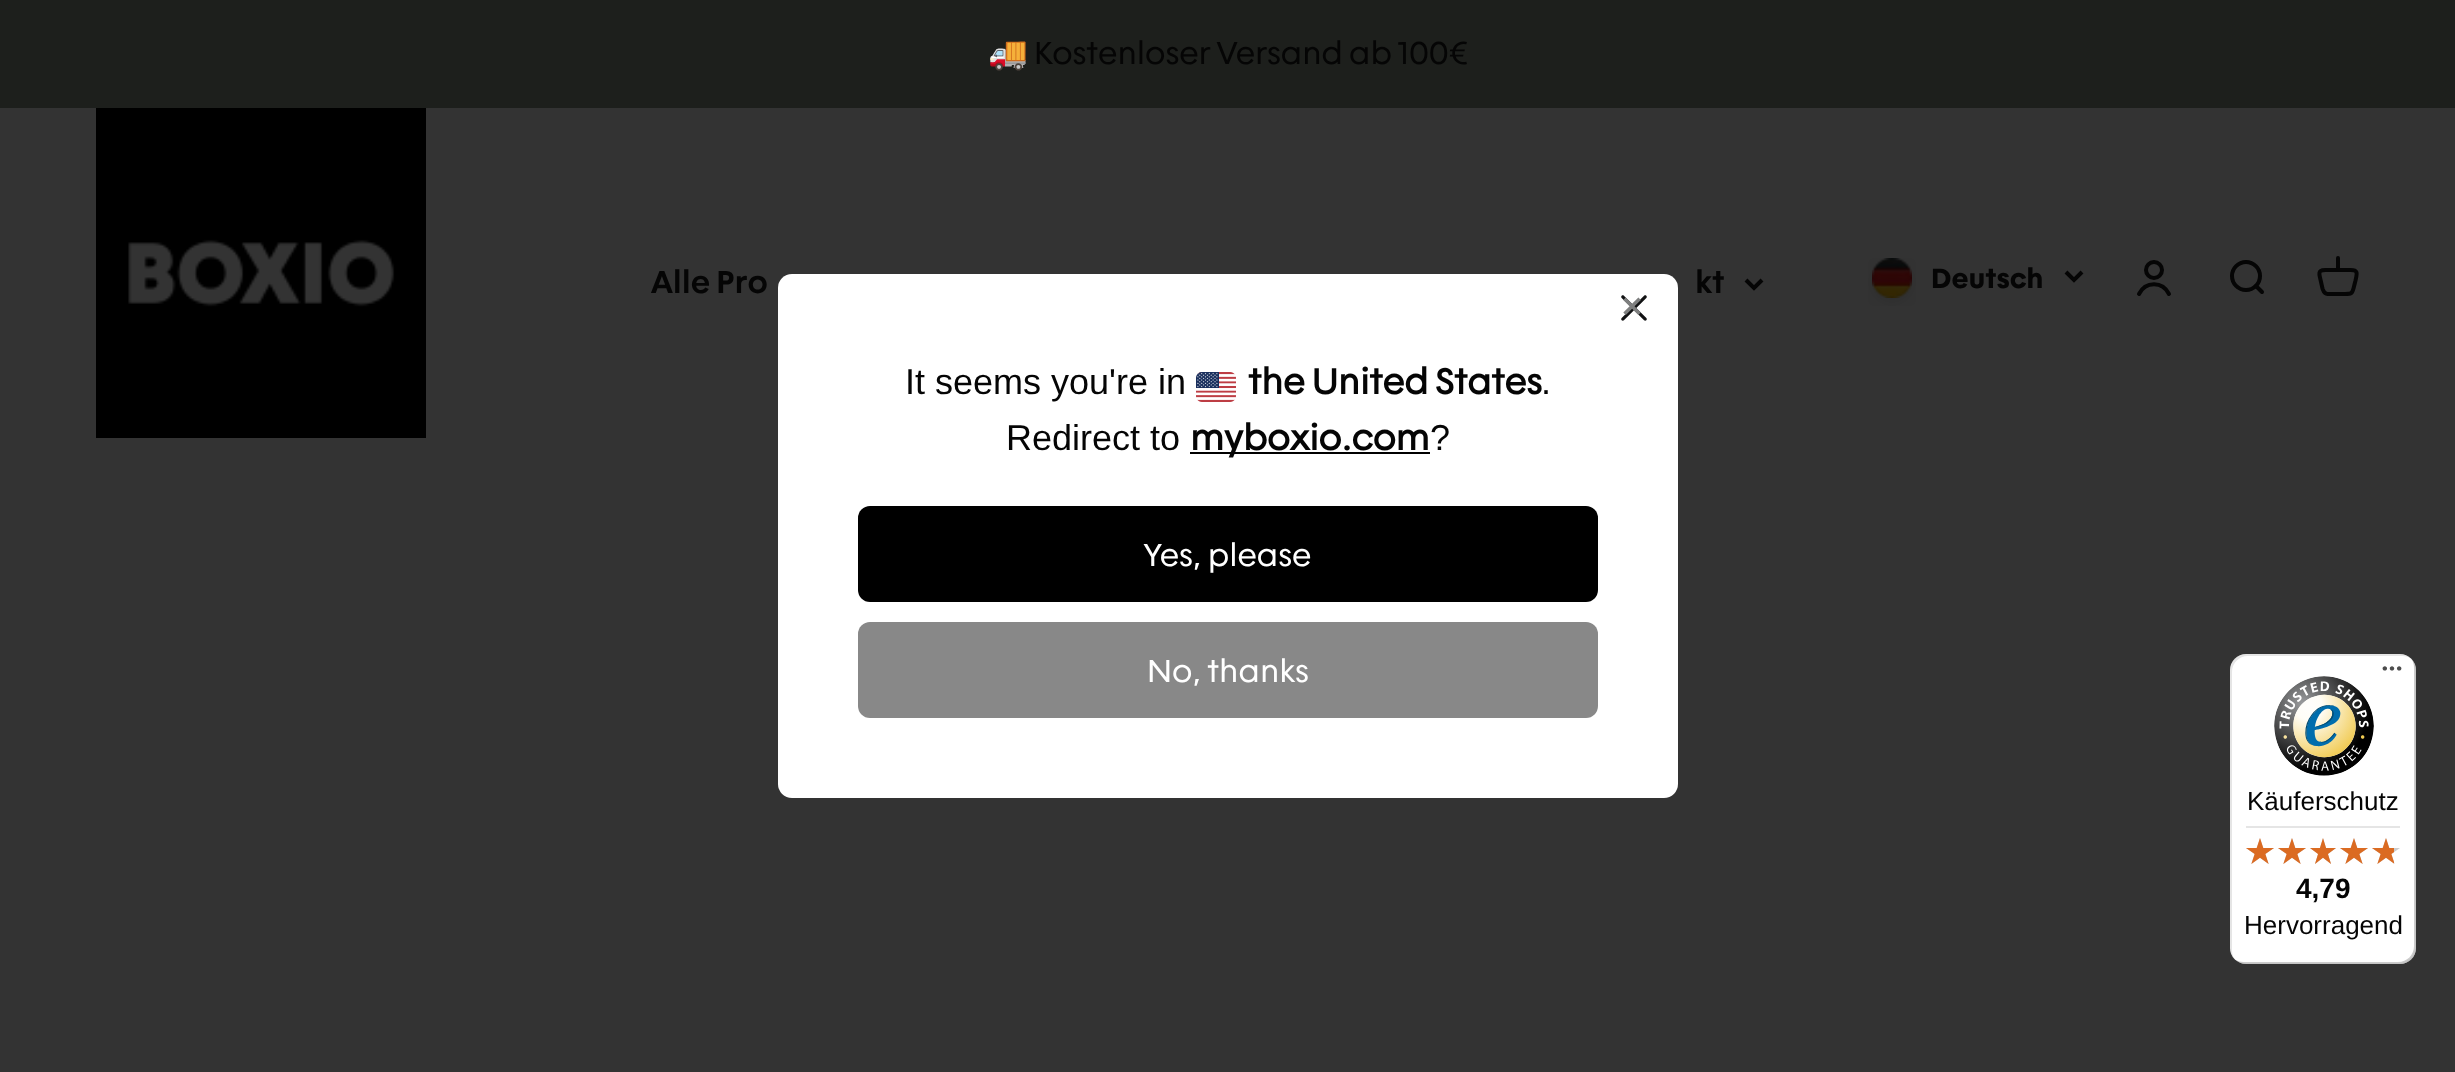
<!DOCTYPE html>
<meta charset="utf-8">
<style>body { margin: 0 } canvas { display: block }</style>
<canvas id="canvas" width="2455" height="1072"></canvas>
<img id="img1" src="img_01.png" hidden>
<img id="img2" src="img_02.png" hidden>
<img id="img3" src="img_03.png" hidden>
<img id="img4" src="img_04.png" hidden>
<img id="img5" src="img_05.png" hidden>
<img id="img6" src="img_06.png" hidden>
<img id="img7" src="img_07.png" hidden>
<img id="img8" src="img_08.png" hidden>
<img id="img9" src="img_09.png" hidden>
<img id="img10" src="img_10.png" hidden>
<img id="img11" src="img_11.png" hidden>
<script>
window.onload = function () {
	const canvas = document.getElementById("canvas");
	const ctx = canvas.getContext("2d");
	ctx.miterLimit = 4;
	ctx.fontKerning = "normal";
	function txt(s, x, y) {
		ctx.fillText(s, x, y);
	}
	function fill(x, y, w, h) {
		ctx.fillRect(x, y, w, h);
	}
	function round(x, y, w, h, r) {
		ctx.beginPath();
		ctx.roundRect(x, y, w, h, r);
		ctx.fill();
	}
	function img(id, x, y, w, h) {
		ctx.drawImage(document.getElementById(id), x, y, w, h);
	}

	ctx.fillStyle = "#333333";
	fill(0, 0, 2455, 1072);
	ctx.fillStyle = "#1D1F1C";
	fill(0, 0, 2455, 108);
	img("img1", 96, 108, 330, 330);
	ctx.beginPath();
	ctx.moveTo(1746, 280);
	ctx.lineTo(1754, 288);
	ctx.lineTo(1762, 280);
	ctx.strokeStyle = "#050505";
	ctx.lineWidth = 4;
	ctx.stroke();
	img("img2", 1868, 258, 48, 48);
	ctx.beginPath();
	ctx.moveTo(2066, 272);
	ctx.lineTo(2074, 280);
	ctx.lineTo(2082, 272);
	ctx.stroke();
	ctx.beginPath();
	ctx.arc(2154, 270, 8, 0, Math.PI * 2);
	ctx.stroke();
	ctx.beginPath();
	ctx.moveTo(2139, 294);
	ctx.bezierCurveTo(2145.5, 281, 2162.5, 281, 2169, 294);
	ctx.lineCap = "round";
	ctx.stroke();
	ctx.beginPath();
	ctx.arc(2246, 276, 14, 0, Math.PI * 2);
	ctx.stroke();
	ctx.beginPath();
	ctx.moveTo(2256, 286);
	ctx.lineTo(2262, 292);
	ctx.lineJoin = "round";
	ctx.stroke();
	ctx.beginPath();
	ctx.moveTo(2338, 270);
	ctx.lineTo(2328, 270);
	ctx.bezierCurveTo(2326, 270, 2322.5, 269.5, 2320.5, 271);
	ctx.bezierCurveTo(2318.5, 272.5, 2319.5, 275.5, 2320, 277.5);
	ctx.lineTo(2322.5, 288.5);
	ctx.bezierCurveTo(2323.5, 291, 2324, 294, 2327.5, 294);
	ctx.lineTo(2345, 294);
	ctx.bezierCurveTo(2351, 294, 2352, 294, 2353.5, 288.5);
	ctx.lineTo(2355.5, 280.5);
	ctx.bezierCurveTo(2357, 273.5, 2358.5, 270, 2350.5, 270);
	ctx.closePath();
	ctx.moveTo(2338, 270);
	ctx.lineTo(2338, 258);
	ctx.stroke();
	ctx.fillStyle = "#FFFFFF";
	round(778, 274, 900, 524, 14);
	img("img3", 1621, 295, 26, 26);
	img("img4", 1196, 372, 40, 30);
	ctx.fillStyle = "#000000";
	fill(1190, 452, 240, 2);
	round(858, 506, 740, 96, 12);
	ctx.fillStyle = "#888888";
	round(858, 622, 740, 96, 12);
	ctx.fillStyle = "#FFFFFF";
	round(2230, 654, 186, 310, 16);
	ctx.fillStyle = "rgba(0, 0, 0, 0.1)";
	ctx.beginPath();
	ctx.moveTo(2248, 656);
	ctx.lineTo(2402, 656);
	ctx.bezierCurveTo(2406, 656, 2409, 657, 2412, 659);
	ctx.bezierCurveTo(2409, 656, 2405, 654, 2400, 654);
	ctx.lineTo(2246, 654);
	ctx.bezierCurveTo(2237, 654, 2230, 661, 2230, 670);
	ctx.lineTo(2230, 948);
	ctx.bezierCurveTo(2230, 953, 2232, 957, 2235, 960);
	ctx.bezierCurveTo(2233, 957, 2232, 954, 2232, 950);
	ctx.lineTo(2232, 672);
	ctx.bezierCurveTo(2232, 663, 2239, 656, 2248, 656);
	ctx.closePath();
	ctx.fill();
	ctx.fillStyle = "rgba(0, 0, 0, 0.2)";
	ctx.beginPath();
	ctx.moveTo(2234, 959);
	ctx.bezierCurveTo(2237, 962, 2241, 964, 2246, 964);
	ctx.lineTo(2400, 964);
	ctx.bezierCurveTo(2409, 964, 2416, 957, 2416, 948);
	ctx.lineTo(2416, 670);
	ctx.bezierCurveTo(2416, 665, 2414, 661, 2411, 658);
	ctx.bezierCurveTo(2413, 661, 2414, 664, 2414, 668);
	ctx.lineTo(2414, 946);
	ctx.bezierCurveTo(2414, 955, 2407, 962, 2398, 962);
	ctx.lineTo(2244, 962);
	ctx.bezierCurveTo(2240, 962, 2237, 961, 2234, 959);
	ctx.closePath();
	ctx.fill();
	ctx.fillStyle = "rgba(50, 50, 50, 0.2)";
	ctx.beginPath();
	ctx.moveTo(2235, 959);
	ctx.bezierCurveTo(2238, 962, 2242, 964, 2246, 964);
	ctx.lineTo(2400, 964);
	ctx.bezierCurveTo(2409, 964, 2416, 957, 2416, 948);
	ctx.lineTo(2416, 670);
	ctx.bezierCurveTo(2416, 666, 2414, 662, 2411, 659);
	ctx.bezierCurveTo(2414, 662, 2415, 665, 2415, 669);
	ctx.lineTo(2415, 947);
	ctx.bezierCurveTo(2415, 956, 2408, 963, 2399, 963);
	ctx.lineTo(2245, 963);
	ctx.bezierCurveTo(2241, 963, 2238, 962, 2235, 959);
	ctx.closePath();
	ctx.fill();
	ctx.fillStyle = "rgba(255, 255, 255, 0.3)";
	ctx.beginPath();
	ctx.moveTo(2235, 959);
	ctx.bezierCurveTo(2238, 962, 2242, 964, 2246, 964);
	ctx.lineTo(2400, 964);
	ctx.bezierCurveTo(2409, 964, 2416, 957, 2416, 948);
	ctx.lineTo(2416, 670);
	ctx.bezierCurveTo(2416, 666, 2414, 662, 2411, 659);
	ctx.bezierCurveTo(2414, 662, 2415, 665, 2415, 669);
	ctx.lineTo(2415, 947);
	ctx.bezierCurveTo(2415, 956, 2408, 963, 2399, 963);
	ctx.lineTo(2245, 963);
	ctx.bezierCurveTo(2241, 963, 2238, 962, 2235, 959);
	ctx.closePath();
	ctx.fill();
	img("img5", 2382, 666, 20, 5);
	img("img6", 2274, 676, 100, 100);
	ctx.fillStyle = "#E5E5E5";
	fill(2246, 826, 154, 2);
	img("img7", 2246, 838, 28, 26);
	img("img7", 2278, 838, 28, 26);
	img("img8", 2310, 838, 26, 26);
	img("img7", 2340, 838, 28, 26);
	img("img7", 2372, 838, 28, 26);
	img("img9", 2246, 838, 28, 26);
	img("img9", 2278, 838, 28, 26);
	img("img10", 2310, 838, 26, 26);
	img("img9", 2340, 838, 28, 26);
	img("img11", 2372, 838, 22, 26);
	ctx.font = "32px Noto Color Emoji";
	ctx.fillStyle = "#050505";
	txt("🚚", 988, 64);
	ctx.font = "32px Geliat";
	txt("Kostenloser Versand ab 100€", 1034, 64);
	ctx.font = "600 32px Geliat";
	txt("Alle Pro", 651, 293);
	txt("kt", 1695, 293);
	ctx.font = "bold 28px Geliat";
	txt("Deutsch", 1931, 288);
	ctx.font = "46px Geliat";
	ctx.fillStyle = "#7E7F7F";
	txt("×", 1618, 322);
	ctx.font = "36px Liberation Sans";
	ctx.fillStyle = "#050505";
	txt("It seems you're in", 905, 394);
	ctx.font = "bold 36px 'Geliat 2'";
	txt("the United States", 1248, 394);
	ctx.font = "36px Liberation Sans";
	txt(".", 1541, 394);
	txt("Redirect to", 1006, 450);
	ctx.font = "bold 36px 'Geliat 2'";
	txt("myboxio.com", 1190, 450);
	ctx.font = "36px Liberation Sans";
	txt("?", 1430, 450);
	ctx.font = "32px Geliat";
	ctx.fillStyle = "#FFFFFF";
	txt("Yes, please", 1144, 566);
	txt("No, thanks", 1147, 682);
	ctx.font = "26px Liberation Sans";
	ctx.fillStyle = "#050505";
	txt("Käuferschutz", 2247, 810);
	ctx.font = "bold 28px Liberation Sans";
	txt("4,79", 2296, 898);
	ctx.font = "26px Liberation Sans";
	txt("Hervorragend", 2244, 934);
};
</script>
